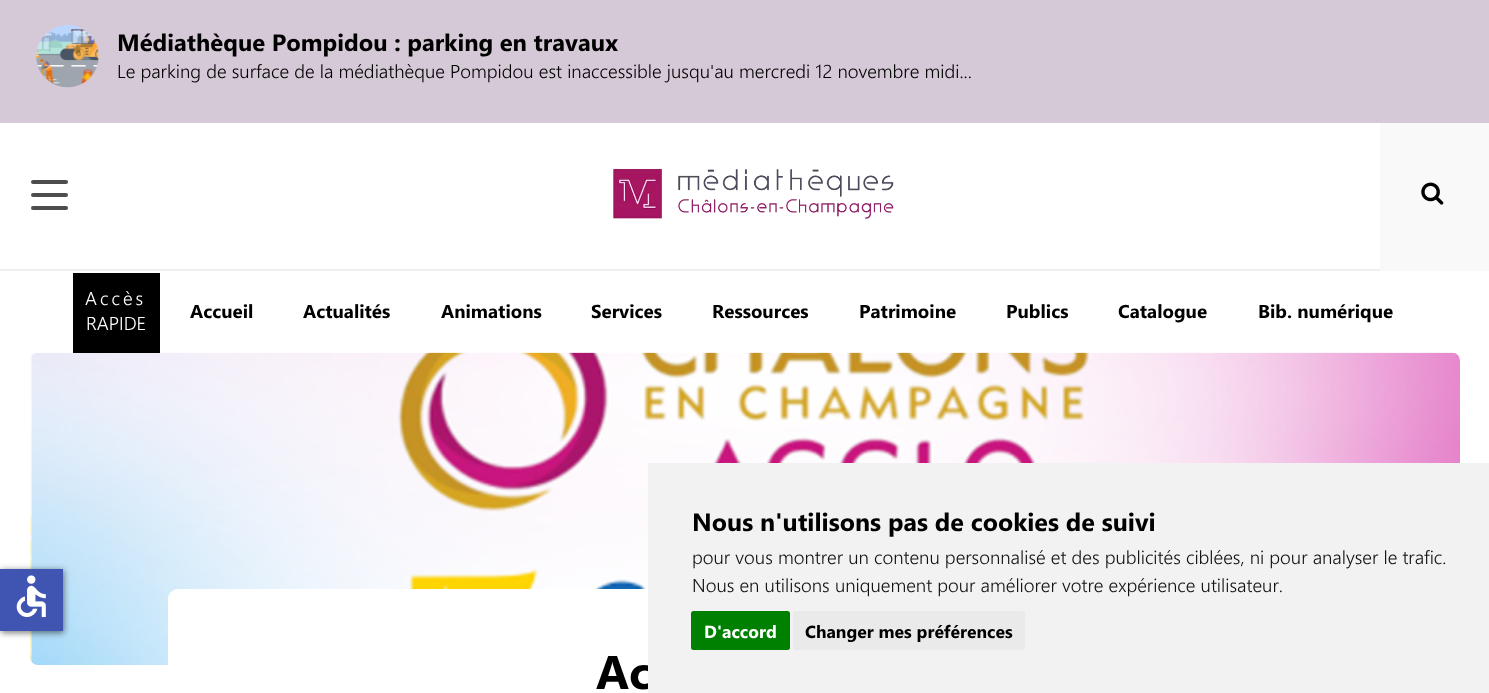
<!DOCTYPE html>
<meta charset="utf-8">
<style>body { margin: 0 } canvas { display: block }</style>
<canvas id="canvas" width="1489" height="693"></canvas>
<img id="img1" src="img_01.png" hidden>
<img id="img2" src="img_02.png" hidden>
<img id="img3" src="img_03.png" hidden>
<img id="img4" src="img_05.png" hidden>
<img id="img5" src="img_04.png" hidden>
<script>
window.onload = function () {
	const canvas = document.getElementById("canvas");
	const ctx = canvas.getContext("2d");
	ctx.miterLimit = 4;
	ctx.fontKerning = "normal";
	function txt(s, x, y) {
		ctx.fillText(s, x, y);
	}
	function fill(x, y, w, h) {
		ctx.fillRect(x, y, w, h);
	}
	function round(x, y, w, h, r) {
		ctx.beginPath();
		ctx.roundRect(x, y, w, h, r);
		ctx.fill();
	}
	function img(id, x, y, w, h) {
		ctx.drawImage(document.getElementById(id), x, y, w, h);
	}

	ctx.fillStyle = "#FFFFFF";
	fill(0, 0, 1489, 693);
	ctx.fillStyle = "#D6C9D7";
	fill(0, 0, 1489, 123);
	img("img1", 36, 25, 64, 63);
	ctx.fillStyle = "#EFEFEF";
	fill(0, 269, 1380, 2);
	ctx.fillStyle = "#4D4D4D";
	round(31, 180, 37, 4, 2);
	round(31, 193, 37, 4, 2);
	round(31, 206, 37, 4, 2);
	img("img2", 613, 168, 281, 51);
	ctx.fillStyle = "#F9F9F9";
	fill(1380, 123, 109, 148);
	img("img3", 1421, 182, 23, 23);
	ctx.fillStyle = "#EFEFEF";
	round(30, 353, 1430, 312, 8);
	img("img4", 30, 352, 1430, 313);
	ctx.fillStyle = "#000000";
	fill(73, 273, 87, 80);
	ctx.fillStyle = "rgba(0, 0, 0, 0.5)";
	ctx.filter = "blur(3px)";
	ctx.beginPath();
	ctx.rect(1, 570, 63, 63);
	ctx.fill();
	ctx.filter = "none";
	ctx.fillStyle = "#4054B2";
	fill(0, 569, 63, 62);
	img("img5", 16, 575, 30, 43);
	ctx.fillStyle = "#FFFFFF";
	ctx.beginPath();
	ctx.moveTo(178, 589);
	ctx.lineTo(1313, 589);
	ctx.bezierCurveTo(1318.5, 589, 1323, 593.5, 1323, 599);
	ctx.lineTo(1323, 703);
	ctx.lineTo(168, 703);
	ctx.lineTo(168, 599);
	ctx.bezierCurveTo(168, 593.5, 172.5, 589, 178, 589);
	ctx.closePath();
	ctx.fill();
	ctx.font = "bold 23.75px Segoe UI";
	ctx.fillStyle = "#000000";
	txt("Médiathèque Pompidou : parking en travaux", 117, 51);
	ctx.font = "300 18.75px Segoe UI";
	txt("Le parking de surface de la médiathèque Pompidou est inaccessible jusqu'au mercredi 12 novembre midi...", 117, 78);
	ctx.letterSpacing = "3px";
	ctx.fillStyle = "#FFFFFF";
	txt("Accès", 85, 305);
	ctx.letterSpacing = "0px";
	txt("RAPIDE", 86, 330);
	ctx.font = "bold 18.75px Segoe UI";
	ctx.fillStyle = "#000000";
	txt("Accueil", 190, 318);
	txt("Actualités", 303, 318);
	txt("Animations", 441, 318);
	txt("Services", 591, 318);
	txt("Ressources", 712, 318);
	txt("Patrimoine", 859, 318);
	txt("Publics", 1006, 318);
	txt("Catalogue", 1118, 318);
	txt("Bib. numérique", 1258, 318);
	ctx.font = "bold 47px Segoe UI";
	txt("Ac", 596, 689);
	ctx.fillStyle = "#F2F2F2";
	fill(648, 463, 841, 230);
	ctx.fillStyle = "#EAEAEA";
	round(793, 611, 232, 39, 2.5);
	ctx.font = "bold 17.5px Segoe UI";
	ctx.fillStyle = "#000000";
	txt("Changer mes préférences", 805, 638);
	ctx.fillStyle = "#008000";
	round(691, 611, 99, 39, 2.5);
	ctx.fillStyle = "#FFFFFF";
	txt("D'accord", 704, 638);
	ctx.font = "300 18.75px Segoe UI";
	ctx.fillStyle = "#111111";
	txt("Nous en utilisons uniquement pour améliorer votre expérience utilisateur.", 692, 592);
	txt("pour vous montrer un contenu personnalisé et des publicités ciblées, ni pour analyser le trafic.", 692, 564);
	ctx.font = "bold 25px Segoe UI";
	ctx.fillStyle = "#000000";
	txt("Nous n'utilisons pas de cookies de suivi", 692, 531);
};
</script>
